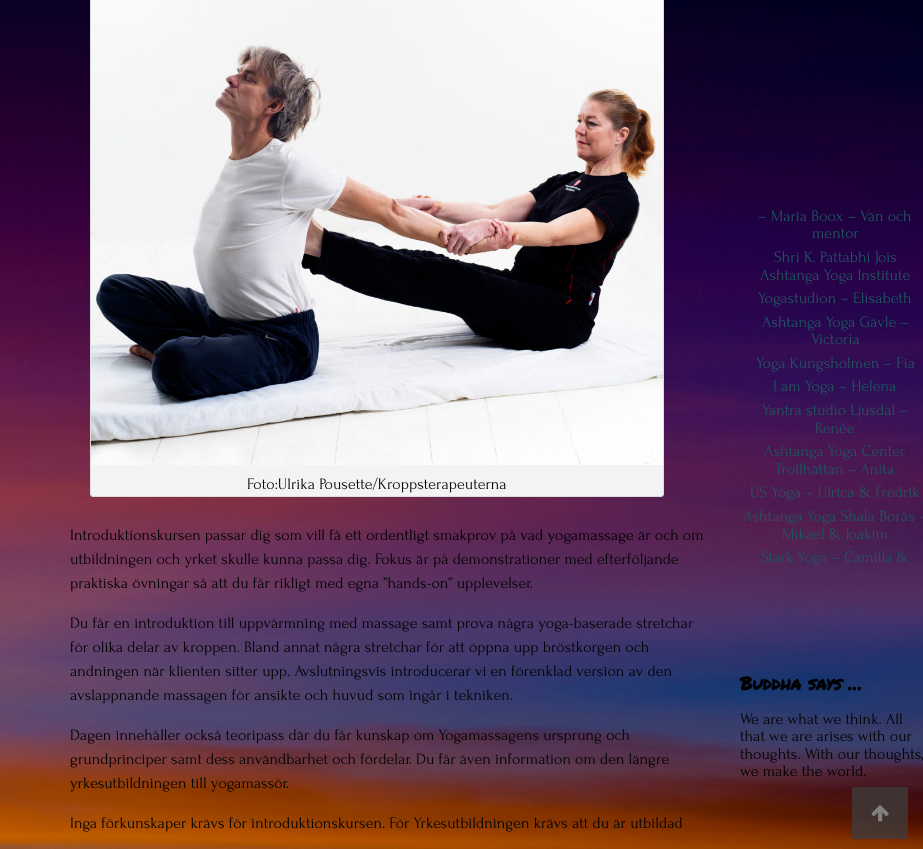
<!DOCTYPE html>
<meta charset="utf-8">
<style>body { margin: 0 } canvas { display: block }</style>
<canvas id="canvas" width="923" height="849"></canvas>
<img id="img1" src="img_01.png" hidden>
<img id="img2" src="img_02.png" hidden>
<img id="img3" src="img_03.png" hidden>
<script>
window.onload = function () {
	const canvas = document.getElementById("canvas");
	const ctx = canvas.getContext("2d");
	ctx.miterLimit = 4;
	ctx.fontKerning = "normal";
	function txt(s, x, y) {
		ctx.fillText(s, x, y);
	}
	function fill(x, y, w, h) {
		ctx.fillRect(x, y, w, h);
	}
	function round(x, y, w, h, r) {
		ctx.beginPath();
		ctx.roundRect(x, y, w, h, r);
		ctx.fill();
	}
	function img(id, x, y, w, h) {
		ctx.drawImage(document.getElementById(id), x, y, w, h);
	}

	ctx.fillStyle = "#FFFFFF";
	fill(0, 0, 923, 849);
	img("img1", 0, 0, 923, 849);
	ctx.fillStyle = "#F3F3F3";
	ctx.beginPath();
	ctx.roundRect(90.5, -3.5, 573, 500, 2.5);
	ctx.fill();
	ctx.strokeStyle = "#DDDDDD";
	ctx.stroke();
	img("img2", 91, 0, 572, 465);
	ctx.fillStyle = "rgba(63, 59, 59, 0.8)";
	round(852, 787, 56, 52, 2);
	img("img3", 871, 805, 18, 17);
	ctx.font = "16px Forum";
	ctx.fillStyle = "#000000";
	txt("Foto:Ulrika Pousette/Kroppsterapeuterna", 247, 489);
	txt("Introduktionskursen passar dig som vill få ett ordentligt smakprov på vad yogamassage är och om", 70, 540);
	txt("utbildningen och yrket skulle kunna passa dig. Fokus är på demonstrationer med efterföljande", 70, 564);
	txt("praktiska övningar så att du får rikligt med egna ”hands-on” upplevelser.", 70, 588);
	txt("Du får en introduktion till uppvärmning med massage samt prova några yoga-baserade stretchar", 70, 628);
	txt("för olika delar av kroppen. Bland annat några stretchar för att öppna upp bröstkorgen och", 70, 652);
	txt("andningen när klienten sitter upp. Avslutningsvis introducerar vi en förenklad version av den", 70, 676);
	txt("avslappnande massagen för ansikte och huvud som ingår i tekniken.", 70, 700);
	txt("Dagen innehåller också teoripass där du får kunskap om Yogamassagens ursprung och", 70, 740);
	txt("grundprinciper samt dess användbarhet och fördelar. Du får även information om den längre", 70, 764);
	txt("yrkesutbildningen till yogamassör.", 70, 788);
	txt("Inga förkunskaper krävs för introduktionskursen. För Yrkesutbildningen krävs att du är utbildad", 70, 828);
	ctx.fillStyle = "#21565E";
	txt("– Maria Boox – Vän och", 758, 221);
	txt("mentor", 812, 238);
	txt("Shri K. Pattabhi Jois", 774, 262);
	txt("Ashtanga Yoga Institute", 760, 280);
	txt("Yogastudion – Elisabeth", 758, 303);
	txt("Ashtanga Yoga Gävle –", 762, 327);
	txt("Victoria", 811, 344);
	txt("Yoga Kungsholmen – Fia", 756, 368);
	txt("I am Yoga – Helena", 773, 391);
	txt("Yantra studio Ljusdal –", 762, 415);
	txt("Renée", 815, 433);
	txt("Ashtanga Yoga Center", 764, 456);
	txt("Trollhättan – Anita", 775, 474);
	txt("US Yoga – Ulrica & Fredrik", 750, 497);
	txt("Ashtanga Yoga Shala Borås –", 743, 521);
	txt("Mikael & Joakim", 782, 539);
	txt("Stark Yoga – Camilla &", 761, 562);
	ctx.font = "bold 18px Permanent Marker";
	ctx.fillStyle = "#000000";
	txt("Buddha says …", 740, 690);
	ctx.font = "16px Forum";
	txt("We are what we think. All", 740, 724);
	txt("that we are arises with our", 740, 741);
	txt("thoughts. With our thoughts,", 740, 759);
	txt("we make the world.", 740, 776);
};
</script>
